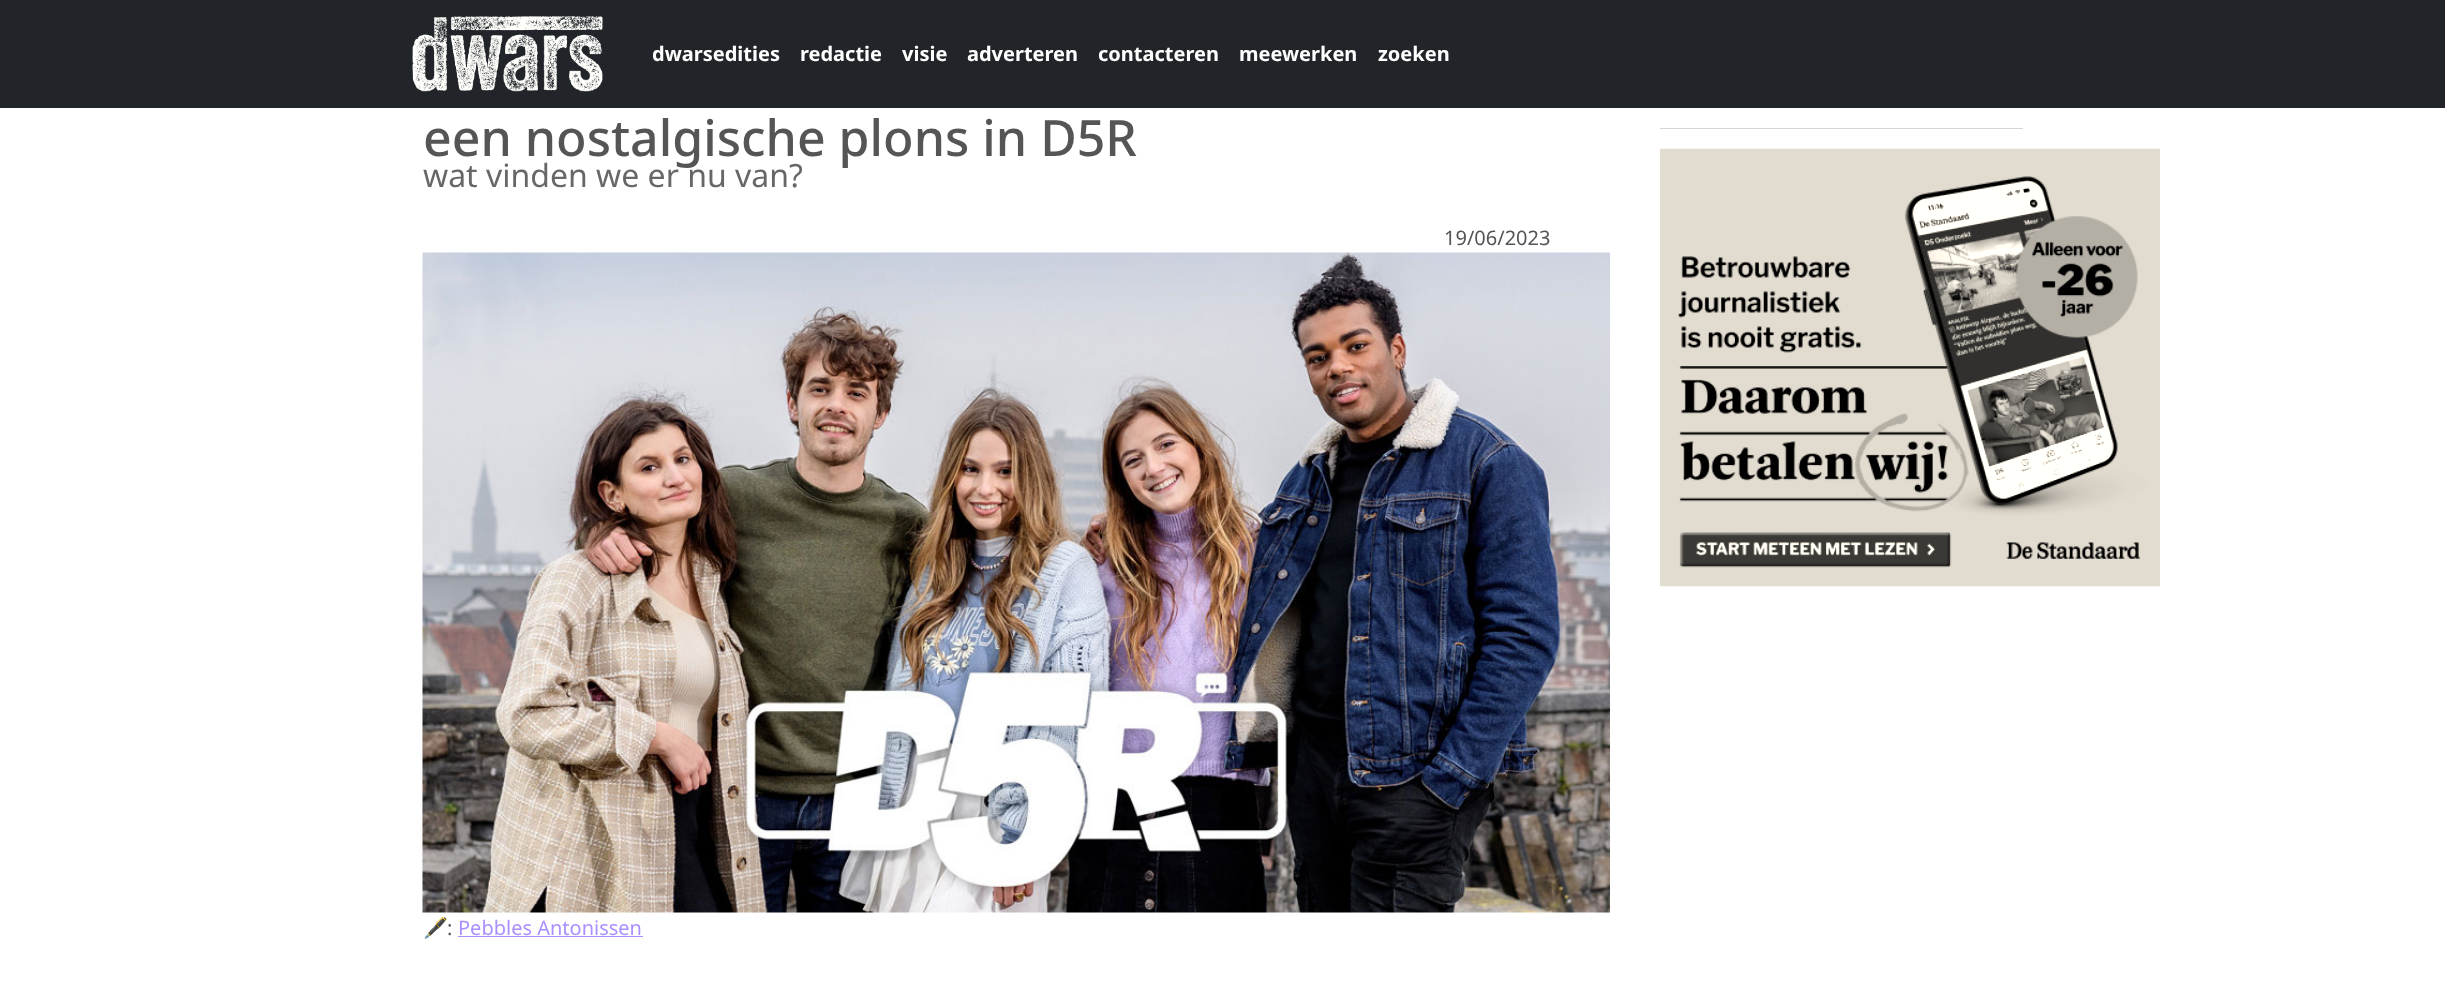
<!DOCTYPE html>
<meta charset="utf-8">
<style>body { margin: 0 } canvas { display: block }</style>
<canvas id="canvas" width="2445" height="987"></canvas>
<img id="img1" src="img_01.png" hidden>
<img id="img2" src="img_02.png" hidden>
<img id="img3" src="img_03.png" hidden>
<script>
window.onload = function () {
	const canvas = document.getElementById("canvas");
	const ctx = canvas.getContext("2d");
	ctx.miterLimit = 4;
	ctx.fontKerning = "normal";
	function txt(s, x, y) {
		ctx.fillText(s, x, y);
	}
	function fill(x, y, w, h) {
		ctx.fillRect(x, y, w, h);
	}
	function img(id, x, y, w, h) {
		ctx.drawImage(document.getElementById(id), x, y, w, h);
	}

	ctx.fillStyle = "#FFFFFF";
	fill(0, 0, 2445, 987);
	ctx.fillStyle = "#212529";
	fill(0, 0, 2445, 108);
	img("img1", 412, 16, 191, 76);
	img("img2", 422, 252, 1188, 661);
	ctx.fillStyle = "#AB8FFF";
	fill(458, 936, 185, 1);
	ctx.fillStyle = "#D5D5D5";
	fill(1660, 128, 363, 1);
	img("img3", 1660, 148, 500, 439);
	ctx.font = "bold 20px Noto Sans";
	ctx.fillStyle = "#FFFFFF";
	txt("dwarsedities", 652, 61);
	txt("redactie", 800, 61);
	txt("visie", 902, 61);
	txt("adverteren", 967, 61);
	txt("contacteren", 1098, 61);
	txt("meewerken", 1239, 61);
	txt("zoeken", 1378, 61);
	ctx.font = "500 50px Noto Sans";
	ctx.fillStyle = "#555555";
	txt("een nostalgische plons in D5R", 423, 156);
	ctx.font = "32px Noto Sans";
	ctx.fillStyle = "#686766";
	txt("wat vinden we er nu van?", 423, 187);
	ctx.font = "20px Noto Sans";
	ctx.fillStyle = "#555555";
	txt("19/06/2023", 1444, 245);
	ctx.font = "20px Noto Color Emoji";
	txt("🖋", 423, 935);
	ctx.font = "20px Noto Sans";
	txt(":", 447, 935);
	ctx.fillStyle = "#AB8FFF";
	txt("Pebbles Antonissen", 458, 935);
};
</script>
